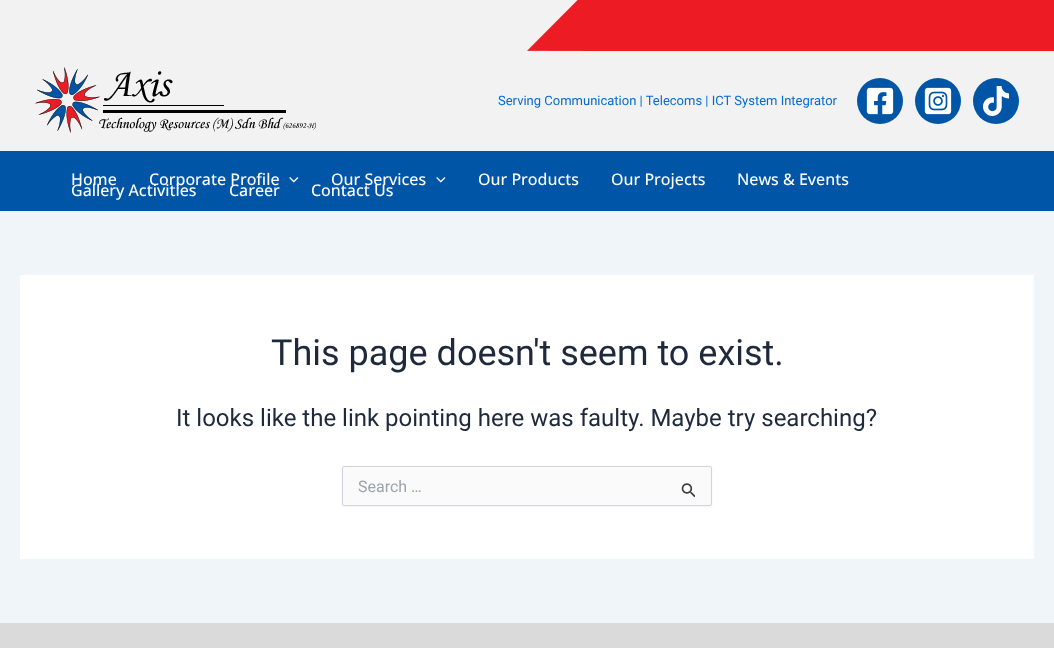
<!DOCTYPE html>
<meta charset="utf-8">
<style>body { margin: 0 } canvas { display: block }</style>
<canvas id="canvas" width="1054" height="648"></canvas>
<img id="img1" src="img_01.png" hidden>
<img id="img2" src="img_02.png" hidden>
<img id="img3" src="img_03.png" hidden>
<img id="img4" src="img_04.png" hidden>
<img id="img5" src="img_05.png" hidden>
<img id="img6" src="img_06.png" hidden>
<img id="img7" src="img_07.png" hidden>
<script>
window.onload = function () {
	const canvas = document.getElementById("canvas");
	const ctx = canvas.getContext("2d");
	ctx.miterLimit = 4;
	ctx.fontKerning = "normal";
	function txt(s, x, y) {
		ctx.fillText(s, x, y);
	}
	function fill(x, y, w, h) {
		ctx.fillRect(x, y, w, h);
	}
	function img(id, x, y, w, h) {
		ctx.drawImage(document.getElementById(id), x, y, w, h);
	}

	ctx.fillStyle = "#F0F5FA";
	fill(0, 0, 1054, 648);
	ctx.fillStyle = "#F2F2F2";
	fill(0, 0, 583, 51);
	img("img1", 527, 0, 527, 51);
	fill(0, 51, 1054, 100);
	img("img2", 35, 67, 281, 66);
	ctx.fillStyle = "#0055A6";
	ctx.beginPath();
	ctx.arc(880, 101, 23, 0, Math.PI * 2);
	ctx.fill();
	img("img3", 866, 87, 28, 28);
	ctx.beginPath();
	ctx.arc(938, 101, 23, 0, Math.PI * 2);
	ctx.fill();
	img("img4", 924, 87, 28, 28);
	ctx.beginPath();
	ctx.arc(996, 101, 23, 0, Math.PI * 2);
	ctx.fill();
	img("img5", 983, 86, 27, 30);
	fill(0, 151, 1054, 60);
	img("img6", 289, 177, 10, 6);
	img("img6", 436, 177, 10, 6);
	ctx.fillStyle = "#FFFFFF";
	fill(20, 275, 1014, 284);
	ctx.fillStyle = "rgba(0, 0, 0, 0.05)";
	ctx.filter = "blur(1px)";
	ctx.beginPath();
	ctx.roundRect(342, 467, 370, 40, 2);
	ctx.fill();
	ctx.filter = "none";
	ctx.fillStyle = "#FAFAFA";
	ctx.beginPath();
	ctx.roundRect(342.5, 466.5, 369, 39, 1.5);
	ctx.fill();
	ctx.strokeStyle = "#D1D5DB";
	ctx.stroke();
	img("img7", 681, 483, 14, 15);
	ctx.fillStyle = "#DADADA";
	fill(0, 623, 1054, 25);
	ctx.font = "13px Roboto";
	ctx.fillStyle = "#046BD2";
	txt("Serving Communication | Telecoms | ICT System Integrator", 498, 105);
	ctx.font = "500 16px Open Sans";
	ctx.fillStyle = "#FFFFFF";
	txt("Home", 71, 185);
	txt("Corporate Profile", 149, 185);
	txt("Our Services", 331, 185);
	txt("Our Products", 478, 185);
	txt("Our Projects", 611, 185);
	txt("News & Events", 737, 185);
	txt("Gallery Activities", 71, 196);
	txt("Career", 229, 196);
	txt("Contact Us", 311, 196);
	ctx.font = "36px Roboto";
	ctx.fillStyle = "#1E293B";
	txt("This page doesn't seem to exist.", 271, 365);
	ctx.font = "24px Roboto";
	txt("It looks like the link pointing here was faulty. Maybe try searching?", 176, 426);
	ctx.font = "16px Roboto";
	ctx.fillStyle = "#9CA3AF";
	txt("Search …", 358, 492);
};
</script>
